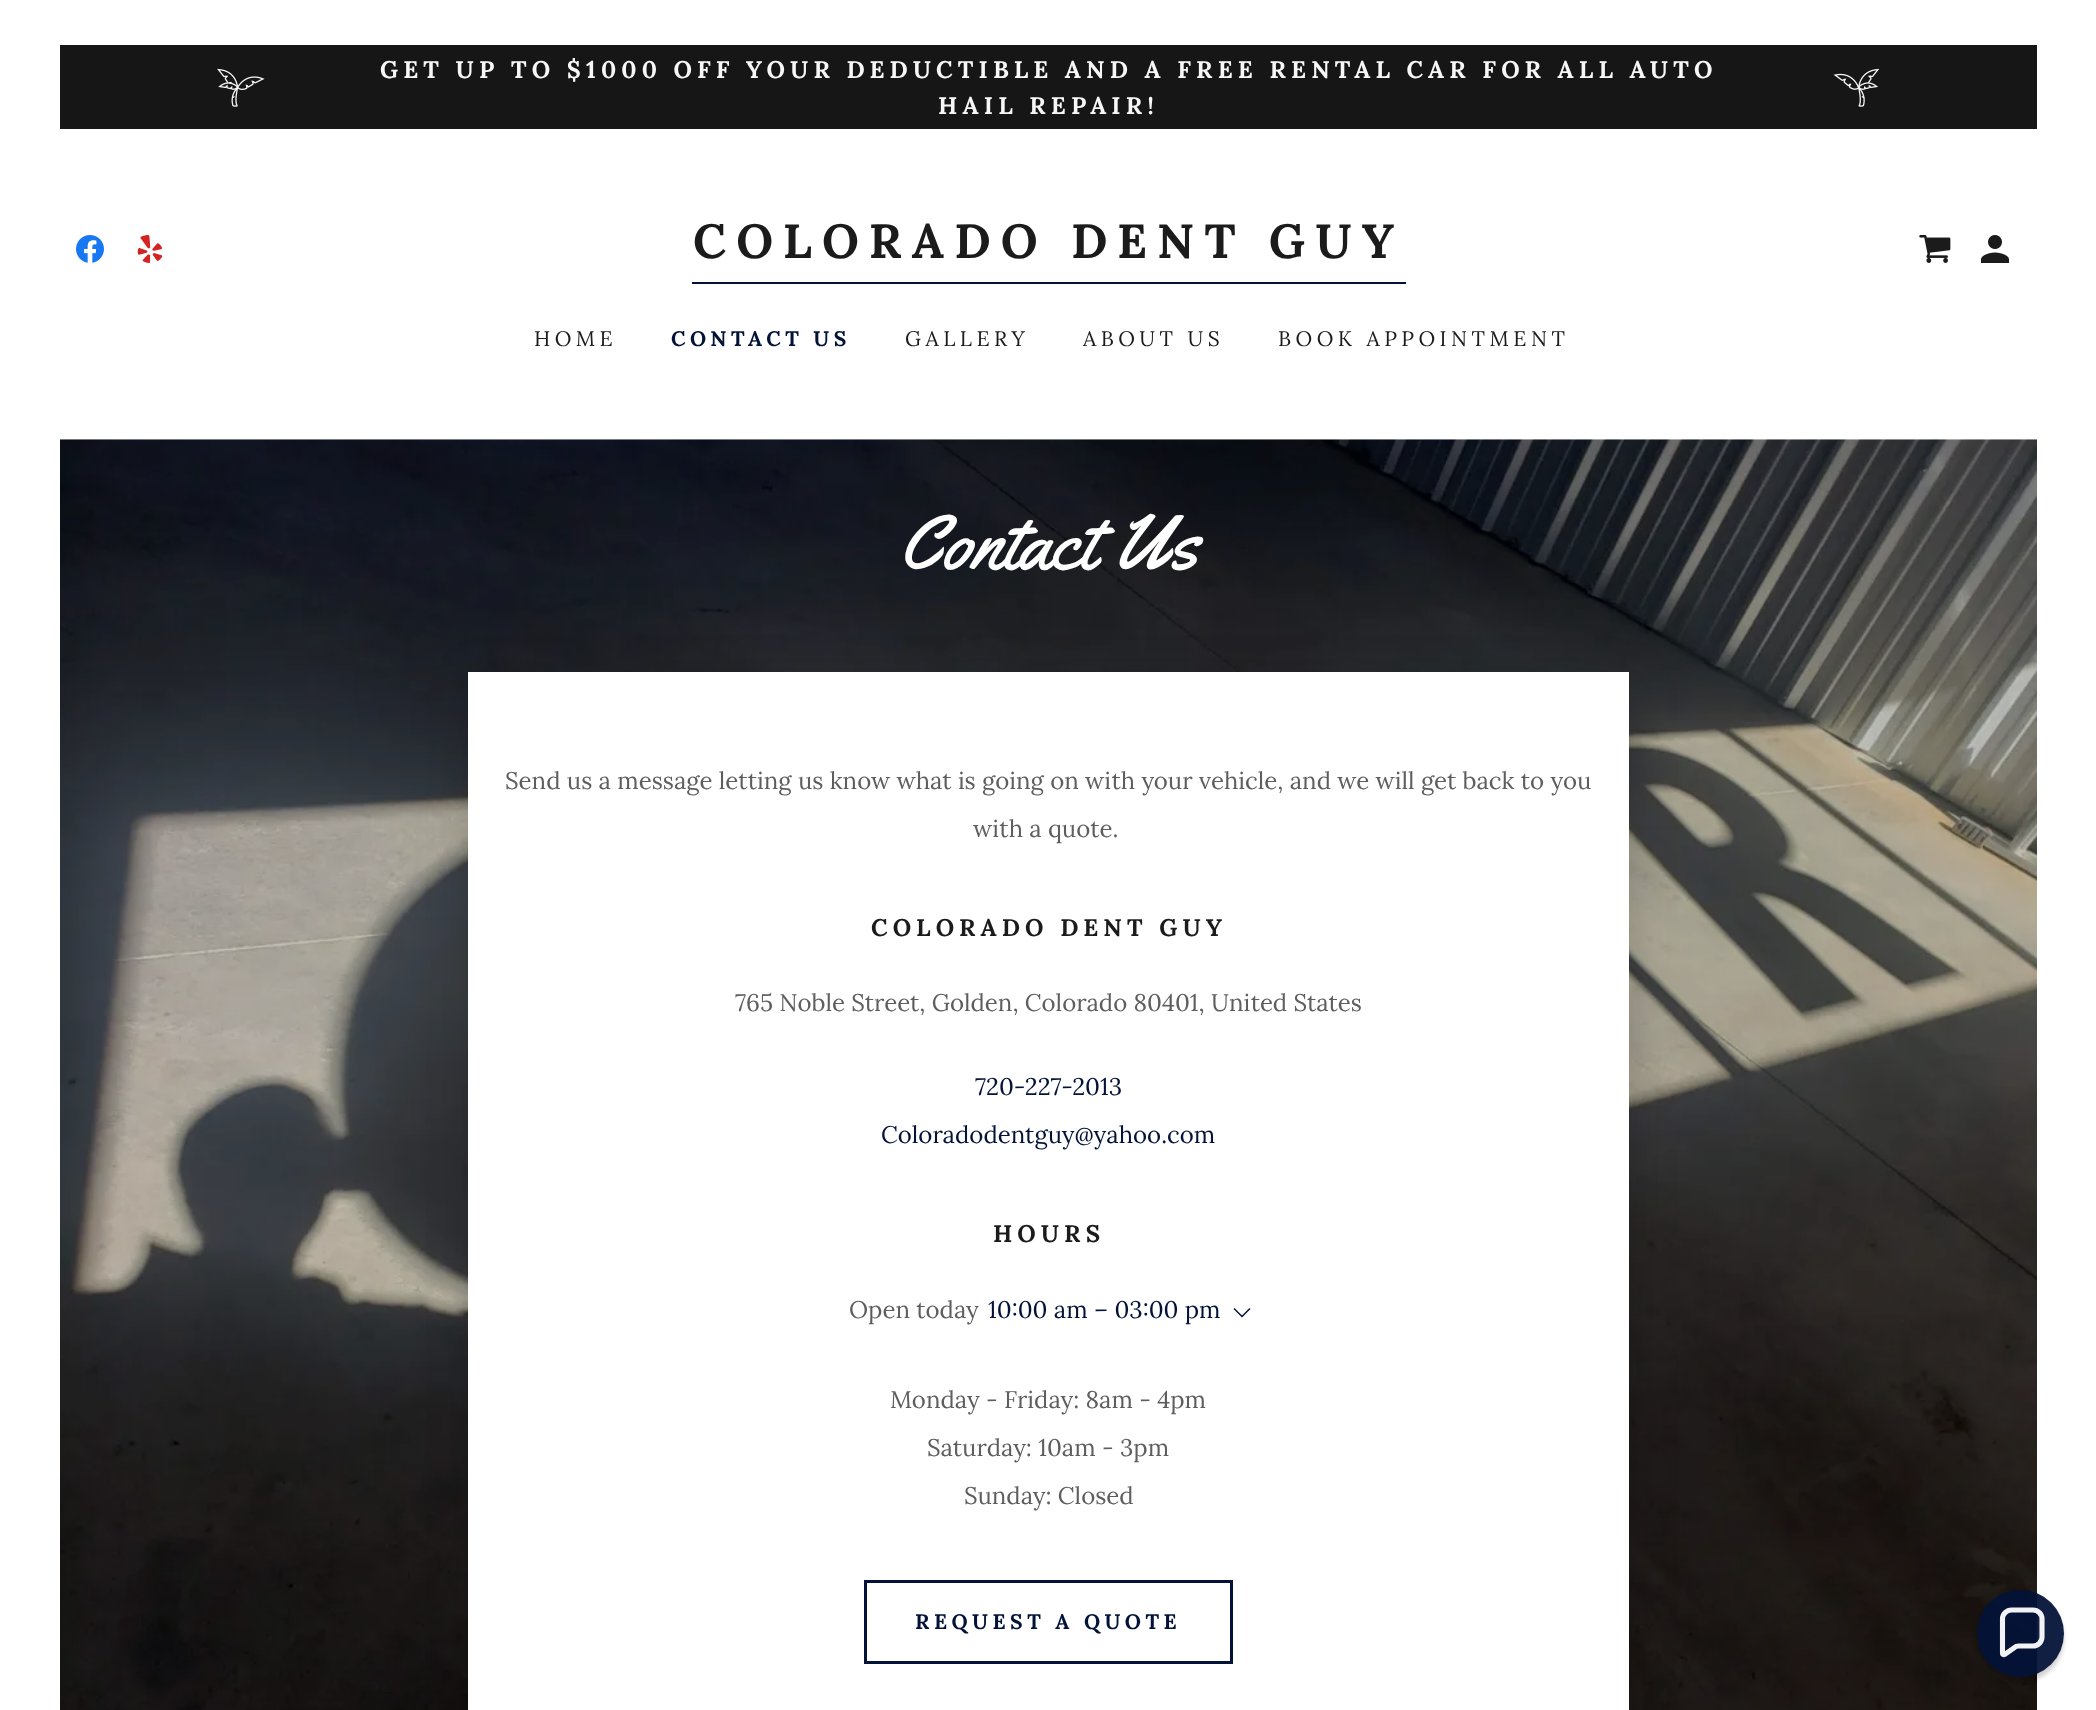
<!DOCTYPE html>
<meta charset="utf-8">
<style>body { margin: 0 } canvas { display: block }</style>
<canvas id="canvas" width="2096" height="1710"></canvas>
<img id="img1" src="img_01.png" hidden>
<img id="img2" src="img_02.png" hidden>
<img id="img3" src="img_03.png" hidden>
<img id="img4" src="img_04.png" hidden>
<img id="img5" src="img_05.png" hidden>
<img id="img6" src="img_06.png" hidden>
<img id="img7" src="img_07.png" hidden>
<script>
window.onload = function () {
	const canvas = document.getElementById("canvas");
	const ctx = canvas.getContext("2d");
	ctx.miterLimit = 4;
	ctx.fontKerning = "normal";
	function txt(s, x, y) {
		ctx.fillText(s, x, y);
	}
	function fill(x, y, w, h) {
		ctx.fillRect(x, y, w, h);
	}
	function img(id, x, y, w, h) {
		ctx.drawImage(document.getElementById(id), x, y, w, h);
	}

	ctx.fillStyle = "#FFFFFF";
	fill(0, 0, 2096, 1710);
	ctx.fillStyle = "#161616";
	fill(60, 45, 1977, 84);
	img("img1", 217, 68, 48, 39);
	img("img2", 1833, 68, 47, 39);
	img("img3", 76, 235, 28, 28);
	img("img4", 137, 235, 26, 28);
	ctx.fillStyle = "#031338";
	fill(692, 282, 714, 2);
	img("img5", 1919, 235, 32, 28);
	img("img6", 1981, 235, 28, 28);
	img("img7", 60, 439, 1977, 1271);
	ctx.fillStyle = "rgba(0, 0, 0, 0.18)";
	ctx.filter = "blur(22.5px)";
	ctx.beginPath();
	ctx.rect(471, 681, 1161, 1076);
	ctx.fill();
	ctx.filter = "none";
	ctx.fillStyle = "#FFFFFF";
	fill(468, 672, 1161, 1038);
	ctx.beginPath();
	ctx.moveTo(1242, 1316.5);
	ctx.lineTo(1241.5, 1316.5);
	ctx.closePath();
	ctx.moveTo(1242, 1316.5);
	ctx.lineTo(1250, 1308.5);
	ctx.lineTo(1242, 1316.5);
	ctx.lineTo(1234, 1308.5);
	ctx.closePath();
	ctx.strokeStyle = "#031338";
	ctx.lineWidth = 1.5;
	ctx.lineCap = "square";
	ctx.stroke();
	ctx.lineWidth = 3;
	ctx.strokeRect(865.5, 1581.5, 366, 81);
	ctx.save();
	ctx.beginPath();
	ctx.moveTo(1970, 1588);
	ctx.lineTo(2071, 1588);
	ctx.lineTo(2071, 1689);
	ctx.lineTo(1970, 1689);
	ctx.closePath();
	ctx.moveTo(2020.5, 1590);
	ctx.bezierCurveTo(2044.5, 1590, 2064, 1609.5, 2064, 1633.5);
	ctx.bezierCurveTo(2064, 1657.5, 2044.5, 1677, 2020.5, 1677);
	ctx.bezierCurveTo(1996.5, 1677, 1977, 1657.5, 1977, 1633.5);
	ctx.bezierCurveTo(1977, 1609.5, 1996.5, 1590, 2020.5, 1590);
	ctx.closePath();
	ctx.clip("evenodd");
	ctx.fillStyle = "rgba(0, 0, 0, 0.19)";
	ctx.filter = "blur(2px)";
	ctx.beginPath();
	ctx.roundRect(1977, 1595, 87, 87, 43.5);
	ctx.fill();
	ctx.filter = "none";
	ctx.restore();
	ctx.fillStyle = "rgba(3, 19, 56, 0.95)";
	ctx.beginPath();
	ctx.arc(2020.5, 1633.5, 43.5, 0, Math.PI * 2);
	ctx.fill();
	ctx.beginPath();
	ctx.moveTo(2033, 1610);
	ctx.lineTo(2011.5, 1610);
	ctx.bezierCurveTo(2006.5, 1610, 2002.5, 1614, 2002.5, 1619);
	ctx.lineTo(2002.5, 1653.5);
	ctx.bezierCurveTo(2002.5, 1654.5, 2003.5, 1655, 2004.5, 1654.5);
	ctx.lineTo(2014.5, 1647.5);
	ctx.bezierCurveTo(2015.5, 1646.5, 2017, 1646, 2018.5, 1646);
	ctx.lineTo(2033, 1646);
	ctx.bezierCurveTo(2038, 1646, 2042, 1642, 2042, 1637);
	ctx.lineTo(2042, 1619);
	ctx.bezierCurveTo(2042, 1614, 2038, 1610, 2033, 1610);
	ctx.closePath();
	ctx.strokeStyle = "rgba(255, 255, 255, 0.95)";
	ctx.lineWidth = 5.1;
	ctx.lineCap = "butt";
	ctx.stroke();
	ctx.letterSpacing = "5.15px";
	ctx.font = "bold 24px Lora";
	ctx.fillStyle = "#F7F7F7";
	txt("GET UP TO $1000 OFF YOUR DEDUCTIBLE AND A FREE RENTAL CAR FOR ALL AUTO", 380, 78);
	txt("HAIL REPAIR!", 938, 114);
	ctx.letterSpacing = "10.25px";
	ctx.font = "bold 48px Lora";
	ctx.fillStyle = "#1B1B1B";
	txt("COLORADO DENT GUY", 693, 258);
	ctx.letterSpacing = "4.5px";
	ctx.font = "21px Lora";
	txt("HOME", 534, 346);
	ctx.font = "bold 21px Lora";
	ctx.fillStyle = "#031338";
	txt("CONTACT US", 671, 346);
	ctx.font = "21px Lora";
	ctx.fillStyle = "#1B1B1B";
	txt("GALLERY", 905, 346);
	txt("ABOUT US", 1083, 346);
	txt("BOOK APPOINTMENT", 1278, 346);
	ctx.letterSpacing = "0px";
	ctx.font = "78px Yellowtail";
	ctx.fillStyle = "#FFFFFF";
	txt("Contact Us", 899, 569);
	ctx.font = "24px Lora";
	ctx.fillStyle = "#5E5E5E";
	txt("Send us a message letting us know what is going on with your vehicle, and we will get back to you", 505, 789);
	txt("with a quote.", 973, 837);
	ctx.letterSpacing = "5.15px";
	ctx.font = "bold 24px Lora";
	ctx.fillStyle = "#1B1B1B";
	txt("COLORADO DENT GUY", 871, 936);
	ctx.letterSpacing = "0px";
	ctx.font = "24px Lora";
	ctx.fillStyle = "#5E5E5E";
	txt("765 Noble Street, Golden, Colorado 80401, United States", 735, 1011);
	ctx.fillStyle = "#031338";
	txt("720-227-2013", 975, 1095);
	txt("Coloradodentguy@yahoo.com", 881, 1143);
	ctx.letterSpacing = "5.15px";
	ctx.font = "bold 24px Lora";
	ctx.fillStyle = "#1B1B1B";
	txt("HOURS", 993, 1242);
	ctx.letterSpacing = "0px";
	ctx.font = "24px Lora";
	ctx.fillStyle = "#5E5E5E";
	txt("Open today", 849, 1318);
	ctx.fillStyle = "#031338";
	txt("10:00 am – 03:00 pm", 988, 1318);
	ctx.fillStyle = "#5E5E5E";
	txt("Monday - Friday: 8am - 4pm", 890, 1408);
	txt("Saturday: 10am - 3pm", 927, 1456);
	txt("Sunday: Closed", 964, 1504);
	ctx.letterSpacing = "4.5px";
	ctx.font = "bold 21px Lora";
	ctx.fillStyle = "#031338";
	txt("REQUEST A QUOTE", 915, 1629);
};
</script>
